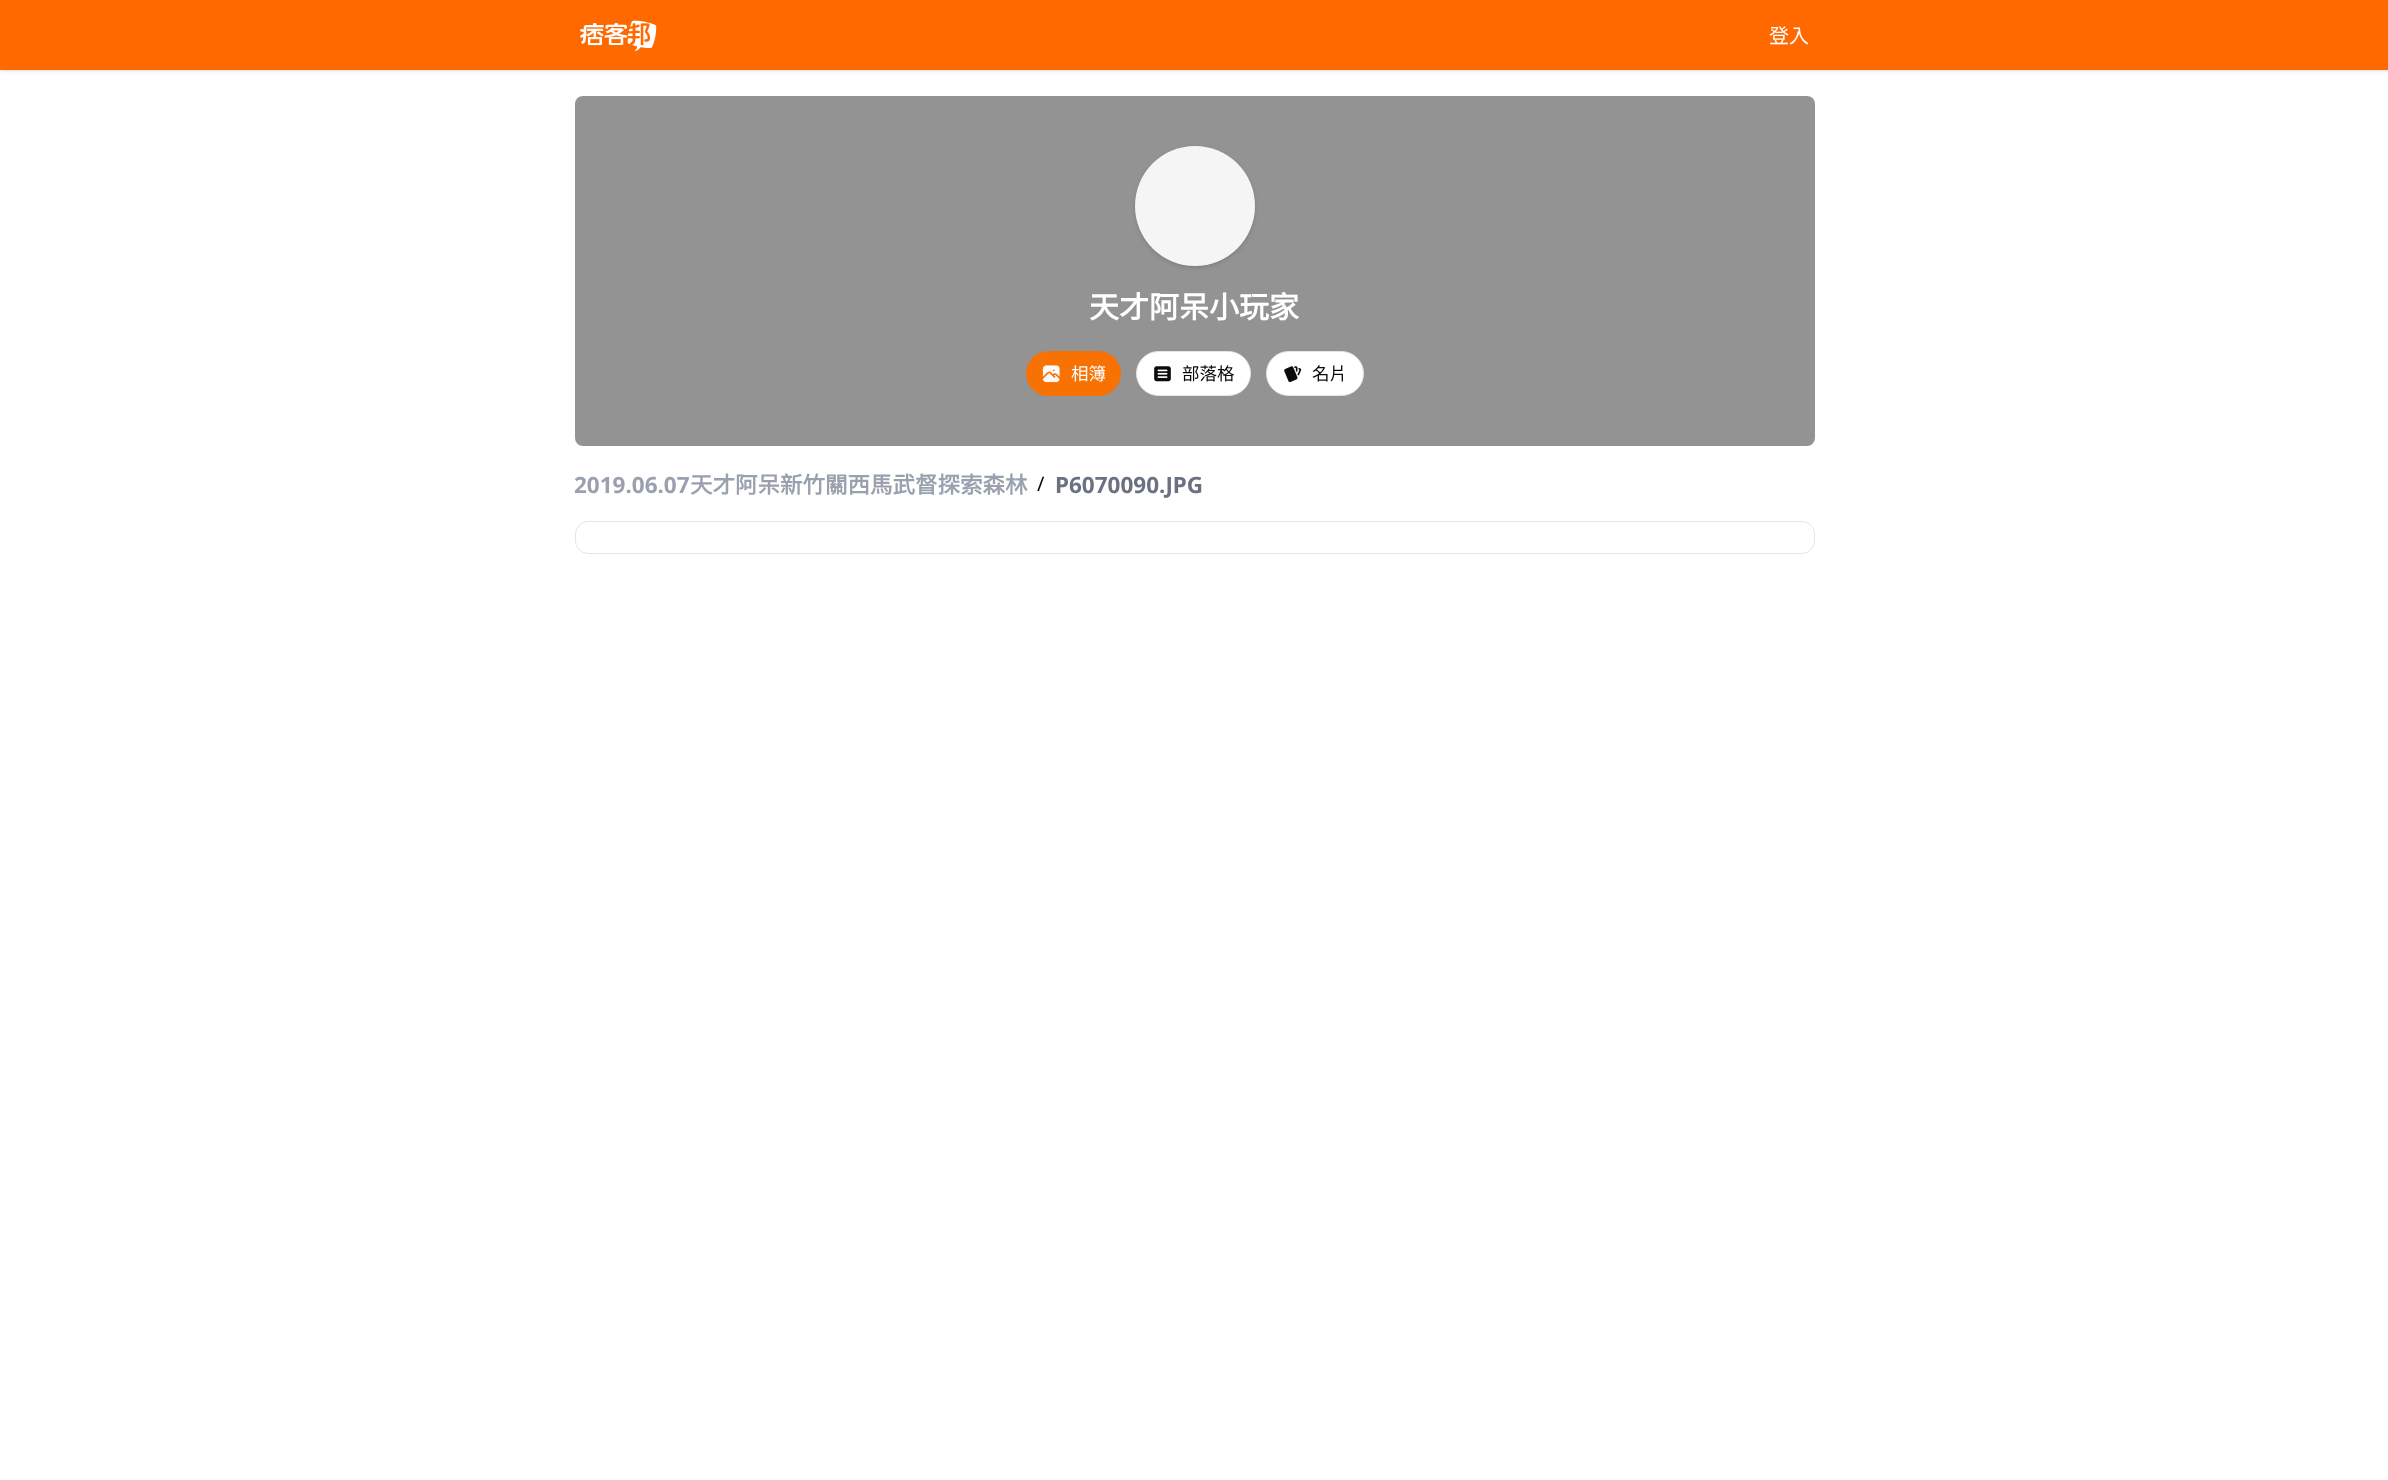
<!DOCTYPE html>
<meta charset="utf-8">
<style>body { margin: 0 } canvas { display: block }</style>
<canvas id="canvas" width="2388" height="1480"></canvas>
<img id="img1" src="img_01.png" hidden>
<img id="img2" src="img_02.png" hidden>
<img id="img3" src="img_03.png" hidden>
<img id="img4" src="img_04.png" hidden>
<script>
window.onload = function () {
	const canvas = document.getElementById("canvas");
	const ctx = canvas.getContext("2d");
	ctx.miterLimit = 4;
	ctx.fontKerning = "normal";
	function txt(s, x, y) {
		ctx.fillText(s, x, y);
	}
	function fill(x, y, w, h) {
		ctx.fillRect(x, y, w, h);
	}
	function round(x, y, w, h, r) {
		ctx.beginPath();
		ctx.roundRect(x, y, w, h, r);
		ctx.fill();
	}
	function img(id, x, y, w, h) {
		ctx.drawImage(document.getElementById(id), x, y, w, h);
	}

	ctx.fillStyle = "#FFFFFF";
	fill(0, 0, 2388, 1480);
	ctx.fillStyle = "rgba(0, 0, 0, 0.1)";
	ctx.filter = "blur(1px)";
	ctx.beginPath();
	ctx.rect(1, 3, 2387, 67);
	ctx.fill();
	ctx.filter = "none";
	ctx.filter = "blur(2px)";
	ctx.beginPath();
	ctx.rect(0, 1, 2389, 70);
	ctx.fill();
	ctx.filter = "none";
	ctx.fillStyle = "#FF6900";
	fill(0, 0, 2388, 70);
	img("img1", 580, 20, 77, 31);
	ctx.fillStyle = "#F5F5F5";
	round(575, 96, 1240, 350, 8);
	ctx.fillStyle = "rgba(0, 0, 0, 0.4)";
	round(575, 96, 1240, 350, 8);
	ctx.fillStyle = "rgba(0, 0, 0, 0.1)";
	ctx.filter = "blur(1px)";
	ctx.beginPath();
	ctx.roundRect(1136, 149, 118, 117, 58.5);
	ctx.fill();
	ctx.filter = "none";
	ctx.filter = "blur(2px)";
	ctx.beginPath();
	ctx.roundRect(1135, 148, 120, 120, 60);
	ctx.fill();
	ctx.filter = "none";
	ctx.fillStyle = "#F5F5F5";
	ctx.beginPath();
	ctx.arc(1195, 206, 60, 0, Math.PI * 2);
	ctx.fill();
	ctx.fillStyle = "#F87103";
	round(1026, 351, 95, 45, 22.5);
	img("img2", 1042, 365, 18, 18);
	ctx.fillStyle = "#FFFFFF";
	ctx.beginPath();
	ctx.roundRect(1136.5, 351.5, 114, 44, 22);
	ctx.fill();
	ctx.strokeStyle = "#E5E5E5";
	ctx.stroke();
	img("img3", 1154, 366, 17, 16);
	ctx.beginPath();
	ctx.roundRect(1266.5, 351.5, 97, 44, 22);
	ctx.fill();
	ctx.stroke();
	img("img4", 1284, 366, 18, 17);
	ctx.beginPath();
	ctx.roundRect(575.5, 521.5, 1239, 32, 12.5);
	ctx.stroke();
	ctx.font = "20px Noto Sans CJK TC";
	txt("登入", 1769, 43);
	ctx.font = "bold 30px Noto Sans CJK TC";
	txt("天才阿呆小玩家", 1089, 318);
	ctx.font = "17.5px Noto Sans CJK TC";
	txt("相簿", 1071, 380);
	ctx.fillStyle = "#0A0A0A";
	txt("部落格", 1182, 380);
	txt("名片", 1312, 380);
	ctx.font = "bold 22.5px Noto Sans";
	ctx.fillStyle = "#99A1AF";
	txt("2019.06.07", 574, 493);
	ctx.font = "bold 22.5px Noto Sans CJK TC";
	txt("天才阿呆新竹關西馬武督探索森林", 690, 493);
	ctx.font = "20px Noto Sans";
	ctx.fillStyle = "#0A0A0A";
	txt("/", 1037, 491);
	ctx.font = "bold 22.5px Noto Sans";
	ctx.fillStyle = "#6A7282";
	txt("P6070090.JPG", 1055, 493);
};
</script>
